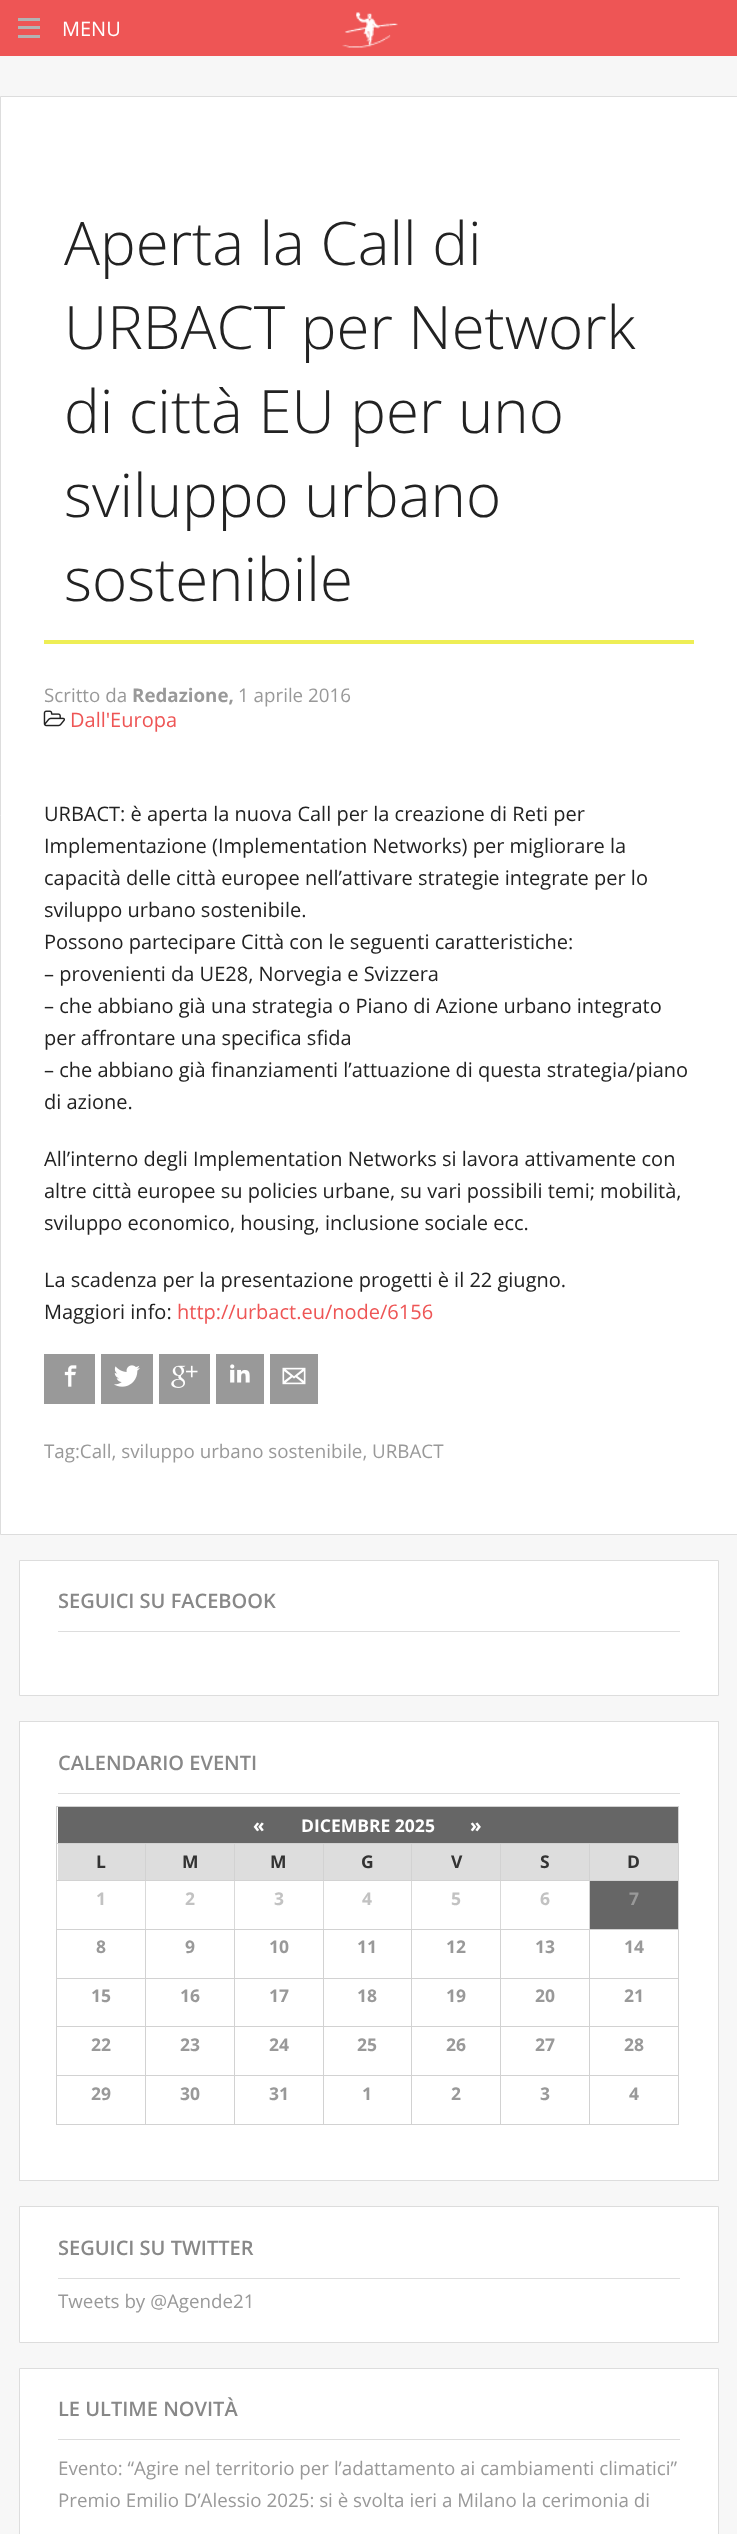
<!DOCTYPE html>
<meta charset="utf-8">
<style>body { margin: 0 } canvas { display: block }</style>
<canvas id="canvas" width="737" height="2534"></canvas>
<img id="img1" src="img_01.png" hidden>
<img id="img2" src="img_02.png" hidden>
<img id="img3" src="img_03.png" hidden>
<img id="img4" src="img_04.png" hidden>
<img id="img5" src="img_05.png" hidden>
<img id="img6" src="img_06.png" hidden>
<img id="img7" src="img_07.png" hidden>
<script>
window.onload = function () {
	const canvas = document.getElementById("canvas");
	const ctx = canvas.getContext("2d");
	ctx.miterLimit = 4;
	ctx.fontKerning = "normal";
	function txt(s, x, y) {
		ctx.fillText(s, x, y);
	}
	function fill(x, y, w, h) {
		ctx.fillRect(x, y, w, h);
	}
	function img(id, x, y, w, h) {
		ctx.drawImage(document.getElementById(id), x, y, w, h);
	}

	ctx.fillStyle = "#F7F7F7";
	fill(0, 0, 737, 2534);
	ctx.fillStyle = "#EE5555";
	fill(0, 0, 737, 56);
	img("img1", 342, 12, 56, 36);
	ctx.fillStyle = "#B3B3B3";
	fill(18, 35, 22, 3);
	fill(18, 26, 22, 3);
	fill(18, 18, 22, 3);
	ctx.fillStyle = "#FFFFFF";
	ctx.beginPath();
	ctx.rect(0.5, 96.5, 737, 1438);
	ctx.fill();
	ctx.strokeStyle = "#DDDDDD";
	ctx.stroke();
	ctx.fillStyle = "#EEEE55";
	fill(44, 640, 650, 4);
	img("img2", 43, 710, 22, 17);
	ctx.fillStyle = "#999999";
	fill(44, 1354, 51, 50);
	img("img3", 64, 1365, 13, 22);
	fill(101, 1354, 52, 50);
	img("img4", 114, 1365, 26, 22);
	fill(159, 1354, 51, 50);
	img("img5", 171, 1365, 27, 23);
	fill(216, 1354, 48, 50);
	img("img6", 230, 1364, 20, 19);
	fill(270, 1354, 48, 50);
	img("img7", 282, 1367, 24, 18);
	ctx.fillStyle = "#FFFFFF";
	ctx.beginPath();
	ctx.rect(19.5, 1560.5, 699, 135);
	ctx.fill();
	ctx.stroke();
	ctx.fillStyle = "#DDDDDD";
	fill(58, 1631, 622, 1);
	ctx.fillStyle = "#FFFFFF";
	fill(20, 1722, 698, 458);
	ctx.fillStyle = "#D9D9D9";
	fill(145, 1880, 1, 50);
	fill(234, 1880, 1, 50);
	fill(323, 1880, 1, 50);
	fill(411, 1880, 1, 50);
	fill(500, 1880, 1, 50);
	ctx.strokeRect(19.5, 1721.5, 699, 459);
	ctx.fillStyle = "#DDDDDD";
	fill(58, 1793, 622, 1);
	ctx.fillStyle = "#D6D6D6";
	fill(56, 1880, 1, 50);
	ctx.fillStyle = "#666666";
	fill(58, 1807, 620, 36);
	ctx.fillStyle = "#D2D2D2";
	fill(56, 1806, 623, 1);
	fill(589, 1843, 90, 1);
	fill(589, 1880, 90, 1);
	fill(589, 1929, 90, 1);
	fill(589, 1978, 90, 1);
	fill(589, 2026, 90, 1);
	fill(589, 2075, 90, 1);
	fill(678, 2075, 1, 50);
	fill(678, 2026, 1, 50);
	fill(678, 1978, 1, 50);
	fill(678, 1929, 1, 50);
	fill(678, 1880, 1, 50);
	fill(678, 1843, 1, 38);
	fill(678, 1806, 1, 38);
	fill(589, 2124, 90, 1);
	fill(589, 2075, 1, 50);
	fill(500, 2075, 90, 1);
	fill(589, 2026, 1, 50);
	fill(500, 2026, 90, 1);
	fill(589, 1978, 1, 50);
	fill(500, 1978, 90, 1);
	fill(589, 1929, 1, 50);
	fill(500, 1929, 90, 1);
	fill(589, 1880, 1, 50);
	fill(589, 1843, 1, 38);
	fill(500, 1843, 90, 1);
	fill(500, 1880, 90, 1);
	fill(500, 1843, 1, 38);
	fill(411, 1843, 90, 1);
	ctx.fillStyle = "#DDDDDD";
	fill(324, 1844, 176, 36);
	ctx.fillStyle = "#D2D2D2";
	fill(411, 1880, 90, 1);
	fill(411, 1843, 1, 38);
	fill(323, 1843, 90, 1);
	fill(323, 1880, 90, 1);
	fill(323, 1843, 1, 38);
	fill(234, 1843, 90, 1);
	fill(234, 1880, 90, 1);
	fill(234, 1843, 1, 38);
	fill(145, 1843, 90, 1);
	fill(145, 1880, 90, 1);
	fill(145, 1843, 1, 38);
	fill(56, 1843, 90, 1);
	fill(56, 1880, 90, 1);
	fill(56, 1843, 1, 38);
	fill(56, 1806, 1, 38);
	ctx.fillStyle = "#DDDDDD";
	fill(58, 1844, 87, 36);
	fill(146, 1844, 88, 36);
	fill(235, 1844, 88, 36);
	fill(501, 1844, 88, 36);
	fill(590, 1844, 88, 36);
	ctx.fillStyle = "#666666";
	fill(590, 1881, 88, 48);
	ctx.fillStyle = "#D2D2D2";
	fill(500, 2124, 90, 1);
	fill(500, 2075, 1, 50);
	fill(411, 2075, 90, 1);
	fill(500, 2026, 1, 50);
	fill(411, 2026, 90, 1);
	fill(500, 1978, 1, 50);
	fill(411, 1978, 90, 1);
	fill(500, 1929, 1, 50);
	fill(411, 1929, 90, 1);
	fill(411, 2124, 90, 1);
	fill(411, 2075, 1, 50);
	fill(323, 2075, 90, 1);
	fill(411, 2026, 1, 50);
	fill(323, 2026, 90, 1);
	fill(411, 1978, 1, 50);
	fill(323, 1978, 90, 1);
	fill(411, 1929, 1, 50);
	fill(323, 1929, 90, 1);
	fill(323, 2124, 90, 1);
	fill(323, 2075, 1, 50);
	fill(234, 2075, 90, 1);
	fill(323, 2026, 1, 50);
	fill(234, 2026, 90, 1);
	fill(323, 1978, 1, 50);
	fill(234, 1978, 90, 1);
	fill(323, 1929, 1, 50);
	fill(234, 1929, 90, 1);
	fill(234, 2124, 90, 1);
	fill(234, 2075, 1, 50);
	fill(145, 2075, 90, 1);
	fill(234, 2026, 1, 50);
	fill(145, 2026, 90, 1);
	fill(234, 1978, 1, 50);
	fill(145, 1978, 90, 1);
	fill(234, 1929, 1, 50);
	fill(145, 1929, 90, 1);
	fill(145, 2124, 90, 1);
	fill(145, 2075, 1, 50);
	fill(56, 2075, 90, 1);
	fill(145, 2026, 1, 50);
	fill(56, 2026, 90, 1);
	fill(145, 1978, 1, 50);
	fill(56, 1978, 90, 1);
	fill(145, 1929, 1, 50);
	fill(56, 1929, 90, 1);
	fill(56, 2124, 90, 1);
	fill(56, 2075, 1, 50);
	fill(56, 2026, 1, 50);
	fill(56, 1978, 1, 50);
	fill(56, 1929, 1, 50);
	ctx.fillStyle = "#FFFFFF";
	ctx.beginPath();
	ctx.rect(19.5, 2206.5, 699, 136);
	ctx.fill();
	ctx.stroke();
	ctx.fillStyle = "#DDDDDD";
	fill(58, 2278, 622, 1);
	ctx.fillStyle = "#FFFFFF";
	ctx.beginPath();
	ctx.rect(19.5, 2368.5, 699, 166);
	ctx.fill();
	ctx.stroke();
	ctx.fillStyle = "#DDDDDD";
	fill(58, 2439, 622, 1);
	ctx.font = "20px Open Sans";
	ctx.fillStyle = "#FFFFFF";
	txt("MENU", 62, 36);
	ctx.font = "300 60px Open Sans";
	ctx.fillStyle = "#222222";
	txt("Aperta la Call di", 64, 265);
	txt("URBACT per Network", 64, 349);
	txt("di città EU per uno", 64, 433);
	txt("sviluppo urbano", 64, 517);
	txt("sostenibile", 64, 601);
	ctx.font = "18.75px Open Sans";
	ctx.fillStyle = "#999999";
	txt("Scritto da", 44, 702);
	ctx.font = "bold 18.75px Open Sans";
	txt("Redazione,", 132, 702);
	ctx.font = "18.75px Open Sans";
	txt("1 aprile 2016", 238, 702);
	ctx.font = "20px Open Sans";
	ctx.fillStyle = "#EE5555";
	txt("Dall'Europa", 70, 727);
	ctx.fillStyle = "#222222";
	txt("URBACT: è aperta la nuova Call per la creazione di Reti per", 44, 821);
	txt("Implementazione (Implementation Networks) per migliorare la", 44, 853);
	txt("capacità delle città europee nell’attivare strategie integrate per lo", 44, 885);
	txt("sviluppo urbano sostenibile.", 44, 917);
	txt("Possono partecipare Città con le seguenti caratteristiche:", 44, 949);
	txt("– provenienti da UE28, Norvegia e Svizzera", 44, 981);
	txt("– che abbiano già una strategia o Piano di Azione urbano integrato", 44, 1013);
	txt("per affrontare una specifica sfida", 44, 1045);
	txt("– che abbiano già finanziamenti l’attuazione di questa strategia/piano", 44, 1077);
	txt("di azione.", 44, 1109);
	txt("All’interno degli Implementation Networks si lavora attivamente con", 44, 1166);
	txt("altre città europee su policies urbane, su vari possibili temi; mobilità,", 44, 1198);
	txt("sviluppo economico, housing, inclusione sociale ecc.", 44, 1230);
	txt("La scadenza per la presentazione progetti è il 22 giugno.", 44, 1287);
	txt("Maggiori info:", 44, 1319);
	ctx.fillStyle = "#EE5555";
	txt("http://urbact.eu/node/6156", 177, 1319);
	ctx.font = "18.75px Open Sans";
	ctx.fillStyle = "#999999";
	txt("Tag:Call, sviluppo urbano sostenibile, URBACT", 44, 1458);
	ctx.font = "600 20px Open Sans";
	ctx.fillStyle = "#888888";
	txt("SEGUICI SU FACEBOOK", 58, 1608);
	txt("CALENDARIO EVENTI", 58, 1770);
	ctx.font = "bold 18.75px Open Sans";
	ctx.fillStyle = "#FFFFFF";
	txt("«", 253, 1832);
	ctx.font = "bold 17.5px Open Sans";
	txt("DICEMBRE 2025", 301, 1832);
	ctx.font = "bold 18.75px Open Sans";
	txt("»", 470, 1832);
	ctx.font = "bold 17.5px Open Sans";
	ctx.fillStyle = "#333333";
	txt("L", 96, 1868);
	txt("M", 182, 1868);
	txt("M", 270, 1868);
	txt("G", 361, 1868);
	txt("V", 451, 1868);
	txt("S", 540, 1868);
	txt("D", 627, 1868);
	ctx.fillStyle = "#C2C2C2";
	txt("1", 96, 1905);
	txt("2", 185, 1905);
	txt("3", 274, 1905);
	txt("4", 362, 1905);
	txt("5", 451, 1905);
	txt("6", 540, 1905);
	ctx.fillStyle = "#999999";
	txt("7", 629, 1905);
	txt("8", 96, 1953);
	txt("9", 185, 1953);
	txt("10", 269, 1953);
	txt("11", 357, 1953);
	txt("12", 446, 1953);
	txt("13", 535, 1953);
	txt("14", 624, 1953);
	txt("15", 91, 2002);
	txt("16", 180, 2002);
	txt("17", 269, 2002);
	txt("18", 357, 2002);
	txt("19", 446, 2002);
	txt("20", 535, 2002);
	txt("21", 624, 2002);
	txt("22", 91, 2051);
	txt("23", 180, 2051);
	txt("24", 269, 2051);
	txt("25", 357, 2051);
	txt("26", 446, 2051);
	txt("27", 535, 2051);
	txt("28", 624, 2051);
	txt("29", 91, 2100);
	txt("30", 180, 2100);
	txt("31", 269, 2100);
	txt("1", 362, 2100);
	txt("2", 451, 2100);
	txt("3", 540, 2100);
	txt("4", 629, 2100);
	ctx.font = "600 20px Open Sans";
	ctx.fillStyle = "#888888";
	txt("SEGUICI SU TWITTER", 58, 2255);
	ctx.font = "18.75px Open Sans";
	ctx.fillStyle = "#999999";
	txt("Tweets by @Agende21", 58, 2308);
	ctx.font = "600 20px Open Sans";
	ctx.fillStyle = "#888888";
	txt("LE ULTIME NOVITÀ", 58, 2416);
	ctx.font = "18.75px Open Sans";
	ctx.fillStyle = "#999999";
	txt("Evento: “Agire nel territorio per l’adattamento ai cambiamenti climatici”", 58, 2475);
	txt("Premio Emilio D’Alessio 2025: si è svolta ieri a Milano la cerimonia di", 58, 2507);
};
</script>
